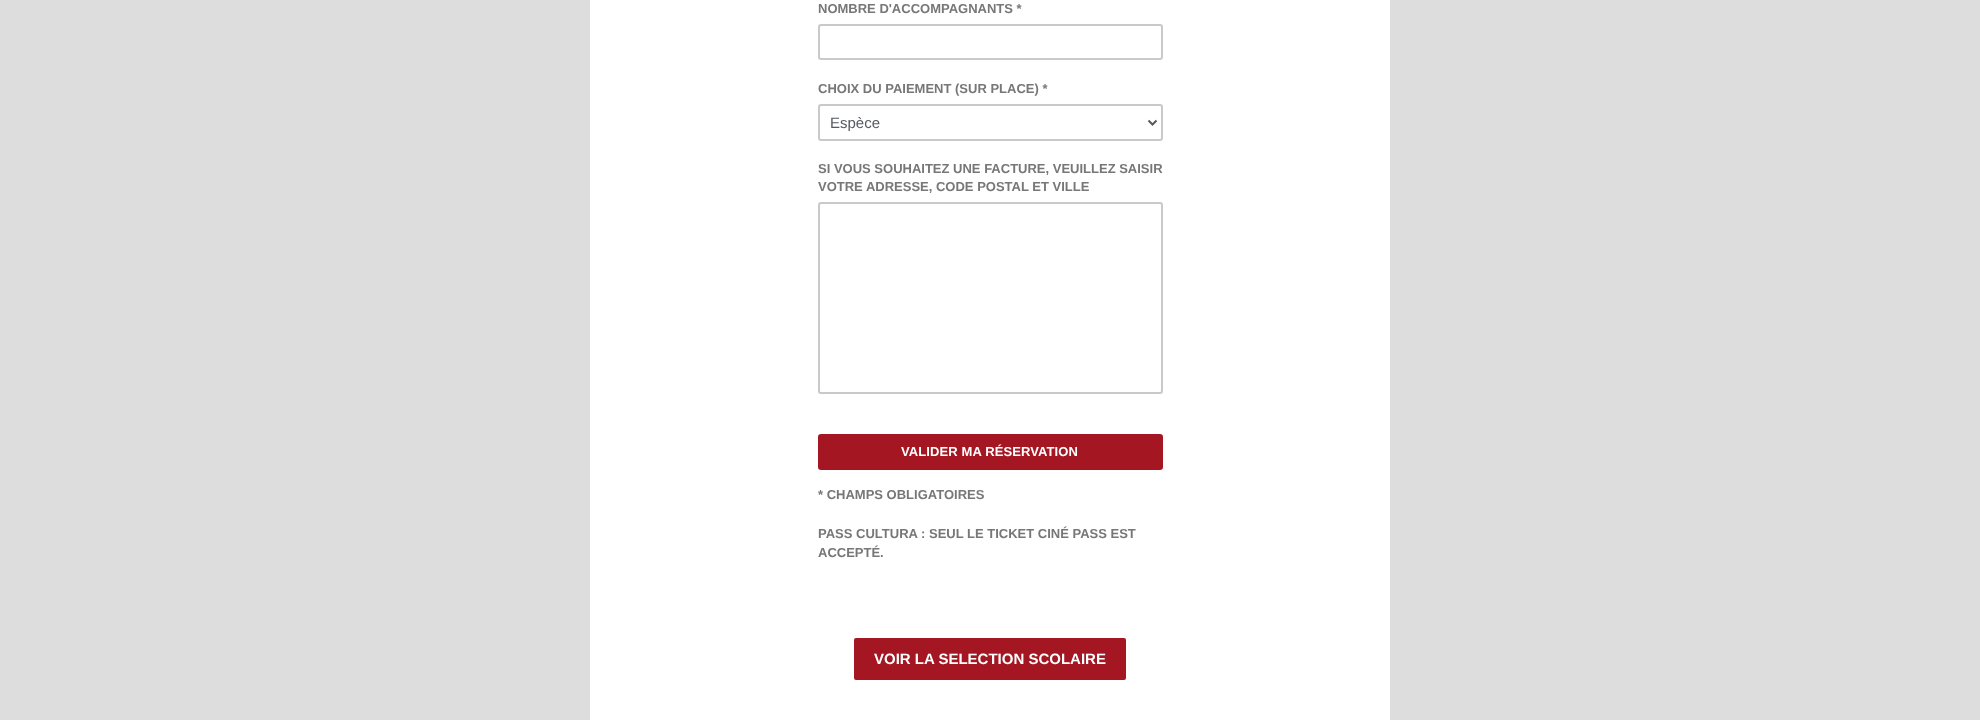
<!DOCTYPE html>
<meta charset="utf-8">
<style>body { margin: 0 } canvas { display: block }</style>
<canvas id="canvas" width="1980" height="720"></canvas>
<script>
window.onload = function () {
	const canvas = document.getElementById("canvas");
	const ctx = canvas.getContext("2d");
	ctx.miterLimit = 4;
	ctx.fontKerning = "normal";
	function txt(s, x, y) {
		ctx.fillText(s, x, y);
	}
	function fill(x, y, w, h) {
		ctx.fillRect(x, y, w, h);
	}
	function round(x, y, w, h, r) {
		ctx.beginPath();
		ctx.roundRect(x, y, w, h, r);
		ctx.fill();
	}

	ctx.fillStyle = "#DDDDDD";
	fill(0, 0, 1980, 720);
	ctx.fillStyle = "#FFFFFF";
	fill(590, 0, 800, 720);
	ctx.beginPath();
	ctx.roundRect(819, 25, 343, 34, 2);
	ctx.strokeStyle = "#C9C9C9";
	ctx.lineWidth = 2;
	ctx.stroke();
	ctx.beginPath();
	ctx.roundRect(819, 105, 343, 35, 2);
	ctx.stroke();
	ctx.beginPath();
	ctx.moveTo(1148.5, 120.5);
	ctx.lineTo(1152.5, 124.5);
	ctx.lineTo(1156.5, 120.5);
	ctx.strokeStyle = "#575962";
	ctx.stroke();
	ctx.beginPath();
	ctx.roundRect(819, 203, 343, 190, 2);
	ctx.strokeStyle = "#C9C9C9";
	ctx.stroke();
	ctx.fillStyle = "#A41622";
	round(818, 434, 345, 36, 3);
	round(854, 638, 272, 42, 2);
	ctx.font = "bold 13px Liberation Sans";
	ctx.fillStyle = "#777777";
	txt("NOMBRE D'ACCOMPAGNANTS *", 818, 13);
	txt("CHOIX DU PAIEMENT (SUR PLACE) *", 818, 93);
	ctx.font = "15px Liberation Sans";
	ctx.fillStyle = "#575962";
	txt("Espèce", 830, 128);
	ctx.font = "bold 13px Liberation Sans";
	ctx.fillStyle = "#777777";
	txt("SI VOUS SOUHAITEZ UNE FACTURE, VEUILLEZ SAISIR", 818, 173);
	txt("VOTRE ADRESSE, CODE POSTAL ET VILLE", 818, 191);
	ctx.letterSpacing = "0.1px";
	ctx.fillStyle = "#FFFFFF";
	txt("VALIDER MA RÉSERVATION", 901, 456);
	ctx.letterSpacing = "0px";
	ctx.fillStyle = "#777777";
	txt("* CHAMPS OBLIGATOIRES", 818, 499);
	txt("PASS CULTURA : SEUL LE TICKET CINÉ PASS EST", 818, 538);
	txt("ACCEPTÉ.", 818, 557);
	ctx.font = "bold 15px Liberation Sans";
	ctx.fillStyle = "#FFFFFF";
	txt("VOIR LA SELECTION SCOLAIRE", 874, 664);
};
</script>
